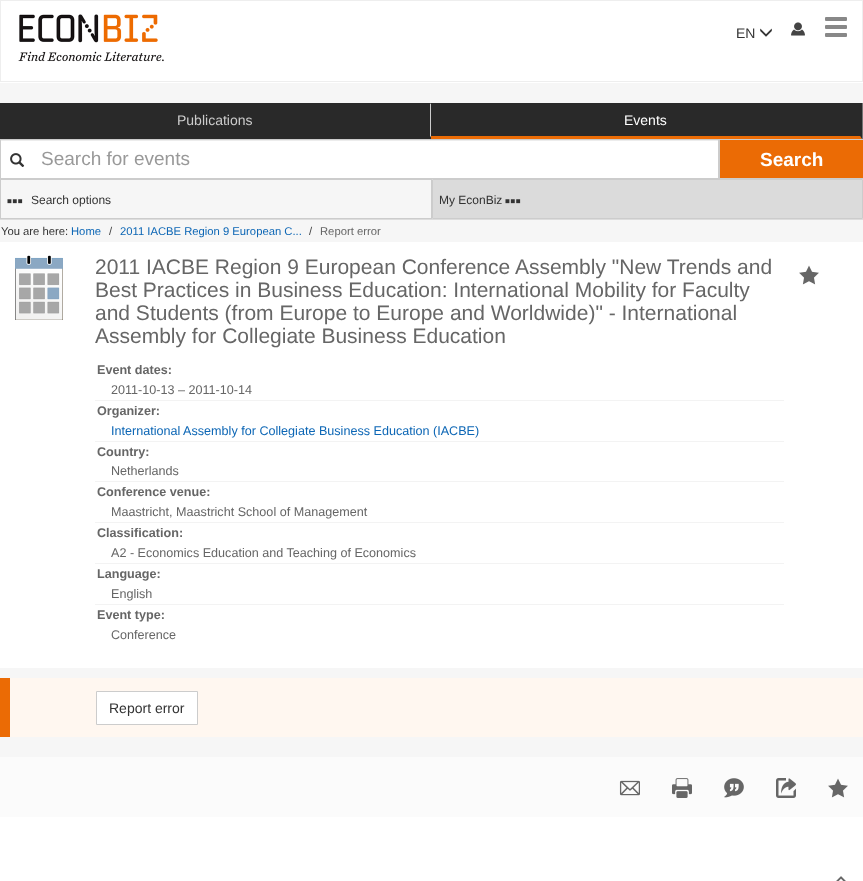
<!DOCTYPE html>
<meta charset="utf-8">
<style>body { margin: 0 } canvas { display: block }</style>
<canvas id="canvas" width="863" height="881"></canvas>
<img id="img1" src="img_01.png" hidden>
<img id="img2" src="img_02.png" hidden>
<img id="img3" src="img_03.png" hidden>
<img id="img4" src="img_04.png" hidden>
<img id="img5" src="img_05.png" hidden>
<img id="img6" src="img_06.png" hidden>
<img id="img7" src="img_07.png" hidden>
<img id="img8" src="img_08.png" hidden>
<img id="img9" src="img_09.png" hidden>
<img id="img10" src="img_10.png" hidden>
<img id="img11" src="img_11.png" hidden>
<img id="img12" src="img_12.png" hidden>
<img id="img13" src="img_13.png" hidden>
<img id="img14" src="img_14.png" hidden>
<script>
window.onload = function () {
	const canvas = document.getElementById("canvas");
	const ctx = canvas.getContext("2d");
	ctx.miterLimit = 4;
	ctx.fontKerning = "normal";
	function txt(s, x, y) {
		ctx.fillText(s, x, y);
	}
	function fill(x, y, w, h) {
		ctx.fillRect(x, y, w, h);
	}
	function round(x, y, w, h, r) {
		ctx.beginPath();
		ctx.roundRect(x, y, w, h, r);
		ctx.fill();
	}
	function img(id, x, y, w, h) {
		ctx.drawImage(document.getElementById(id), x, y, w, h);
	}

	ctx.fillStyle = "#FFFFFF";
	fill(0, 0, 863, 881);
	ctx.strokeStyle = "#EEEEEE";
	ctx.strokeRect(0.5, 0.5, 862, 81);
	img("img1", 18, 14, 146, 48);
	img("img2", 760, 28, 12, 9);
	img("img3", 791, 22, 14, 14);
	ctx.fillStyle = "#888888";
	round(825, 17, 22, 4, 1);
	round(825, 25, 22, 4, 1);
	round(825, 33, 22, 4, 1);
	ctx.fillStyle = "#F6F6F6";
	fill(0, 83, 863, 159);
	ctx.fillStyle = "#747474";
	fill(430, 103, 433, 36);
	ctx.fillStyle = "#292929";
	fill(0, 104, 430, 32);
	ctx.beginPath();
	ctx.moveTo(0, 103);
	ctx.lineTo(432, 103);
	ctx.lineTo(430, 104);
	ctx.lineTo(0, 104);
	ctx.closePath();
	ctx.fill();
	ctx.fillStyle = "#CCCCCC";
	ctx.beginPath();
	ctx.moveTo(432, 103);
	ctx.lineTo(432, 139);
	ctx.lineTo(430, 136);
	ctx.lineTo(430, 104);
	ctx.closePath();
	ctx.fill();
	ctx.fillStyle = "#292929";
	ctx.beginPath();
	ctx.moveTo(432, 139);
	ctx.lineTo(0, 139);
	ctx.lineTo(0, 136);
	ctx.lineTo(430, 136);
	ctx.closePath();
	ctx.fill();
	fill(431, 104, 429, 32);
	fill(431, 103, 431, 1);
	ctx.beginPath();
	ctx.moveTo(862, 103);
	ctx.lineTo(862, 139);
	ctx.lineTo(860, 136);
	ctx.lineTo(860, 104);
	ctx.closePath();
	ctx.fill();
	ctx.fillStyle = "#EB6B05";
	ctx.beginPath();
	ctx.moveTo(862, 139);
	ctx.lineTo(431, 139);
	ctx.lineTo(431, 136);
	ctx.lineTo(860, 136);
	ctx.closePath();
	ctx.fill();
	ctx.fillStyle = "#FFFFFF";
	fill(1, 141, 717, 37);
	ctx.fillStyle = "#ECECEC";
	fill(1, 140, 717, 1);
	ctx.strokeStyle = "#CCCCCC";
	ctx.strokeRect(0.5, 139.5, 718, 39);
	img("img4", 10, 153, 15, 14);
	ctx.fillStyle = "#EB6B05";
	fill(720, 140, 143, 38);
	ctx.fillStyle = "#CCCCCC";
	fill(719, 139, 144, 1);
	fill(719, 178, 144, 1);
	fill(719, 139, 1, 40);
	ctx.fillStyle = "#DDDDDD";
	fill(0, 219, 863, 1);
	ctx.strokeRect(0.5, 179.5, 431, 39);
	img("img5", 7, 199, 16, 5);
	ctx.fillStyle = "#DBDBDB";
	ctx.beginPath();
	ctx.rect(432.5, 179.5, 430, 39);
	ctx.fill();
	ctx.stroke();
	img("img6", 505, 199, 16, 5);
	ctx.fillStyle = "#F6F6F6";
	fill(0, 668, 863, 89);
	img("img7", 15, 255, 48, 65);
	ctx.fillStyle = "#F3F3F3";
	fill(95, 400, 689, 1);
	fill(95, 441, 689, 1);
	fill(95, 481, 689, 1);
	fill(95, 522, 689, 1);
	fill(95, 563, 689, 1);
	fill(95, 604, 689, 1);
	img("img8", 799, 265, 20, 20);
	ctx.fillStyle = "#FFF7F0";
	fill(10, 678, 853, 59);
	ctx.fillStyle = "#EB6B05";
	fill(0, 678, 10, 59);
	ctx.fillStyle = "#FFFFFF";
	ctx.beginPath();
	ctx.rect(96.5, 691.5, 101, 33);
	ctx.fill();
	ctx.stroke();
	ctx.fillStyle = "#FBFBFB";
	fill(0, 757, 863, 60);
	img("img9", 619, 780, 21, 16);
	img("img10", 672, 778, 20, 20);
	img("img11", 724, 778, 20, 20);
	img("img12", 776, 778, 20, 20);
	img("img13", 828, 778, 20, 20);
	img("img14", 836, 876, 10, 5);
	ctx.font = "14px Liberation Sans";
	ctx.fillStyle = "#333333";
	txt("EN", 736, 38);
	ctx.fillStyle = "#CCCCCC";
	txt("Publications", 177, 125);
	ctx.fillStyle = "#FFFFFF";
	txt("Events", 624, 125);
	ctx.font = "19px Liberation Sans";
	ctx.fillStyle = "#999999";
	txt("Search for events", 41, 165);
	ctx.font = "bold 19px Liberation Sans";
	ctx.fillStyle = "#FFFFFF";
	txt("Search", 760, 166);
	ctx.font = "12px Liberation Sans";
	ctx.fillStyle = "#333333";
	txt("Search options", 31, 204);
	txt("My EconBiz", 439, 204);
	ctx.font = "11.25px Liberation Sans";
	txt("You are here:", 1, 235);
	ctx.fillStyle = "#0C66B5";
	txt("Home", 71, 235);
	ctx.fillStyle = "#444444";
	txt("/", 109, 235);
	ctx.fillStyle = "#0C66B5";
	txt("2011 IACBE Region 9 European C...", 120, 235);
	ctx.fillStyle = "#444444";
	txt("/", 309, 235);
	ctx.fillStyle = "#666666";
	txt("Report error", 320, 235);
	ctx.font = "21px Liberation Sans";
	txt("2011 IACBE Region 9 European Conference Assembly \"New Trends and", 95, 274);
	txt("Best Practices in Business Education: International Mobility for Faculty", 95, 297);
	txt("and Students (from Europe to Europe and Worldwide)\" - International", 95, 320);
	txt("Assembly for Collegiate Business Education", 95, 343);
	ctx.font = "bold 12.6px Liberation Sans";
	txt("Event dates:", 97, 374);
	ctx.font = "12.6px Liberation Sans";
	txt("2011-10-13 – 2011-10-14", 111, 394);
	ctx.font = "bold 12.6px Liberation Sans";
	txt("Organizer:", 97, 415);
	ctx.font = "12.6px Liberation Sans";
	ctx.fillStyle = "#0C66B5";
	txt("International Assembly for Collegiate Business Education (IACBE)", 111, 435);
	ctx.font = "bold 12.6px Liberation Sans";
	ctx.fillStyle = "#666666";
	txt("Country:", 97, 456);
	ctx.font = "12.6px Liberation Sans";
	txt("Netherlands", 111, 475);
	ctx.font = "bold 12.6px Liberation Sans";
	txt("Conference venue:", 97, 496);
	ctx.font = "12.6px Liberation Sans";
	txt("Maastricht, Maastricht School of Management", 111, 516);
	ctx.font = "bold 12.6px Liberation Sans";
	txt("Classification:", 97, 537);
	ctx.font = "12.6px Liberation Sans";
	txt("A2 - Economics Education and Teaching of Economics", 111, 557);
	ctx.font = "bold 12.6px Liberation Sans";
	txt("Language:", 97, 578);
	ctx.font = "12.6px Liberation Sans";
	txt("English", 111, 598);
	ctx.font = "bold 12.6px Liberation Sans";
	txt("Event type:", 97, 619);
	ctx.font = "12.6px Liberation Sans";
	txt("Conference", 111, 639);
	ctx.font = "14px Liberation Sans";
	ctx.fillStyle = "#333333";
	txt("Report error", 109, 713);
};
</script>
